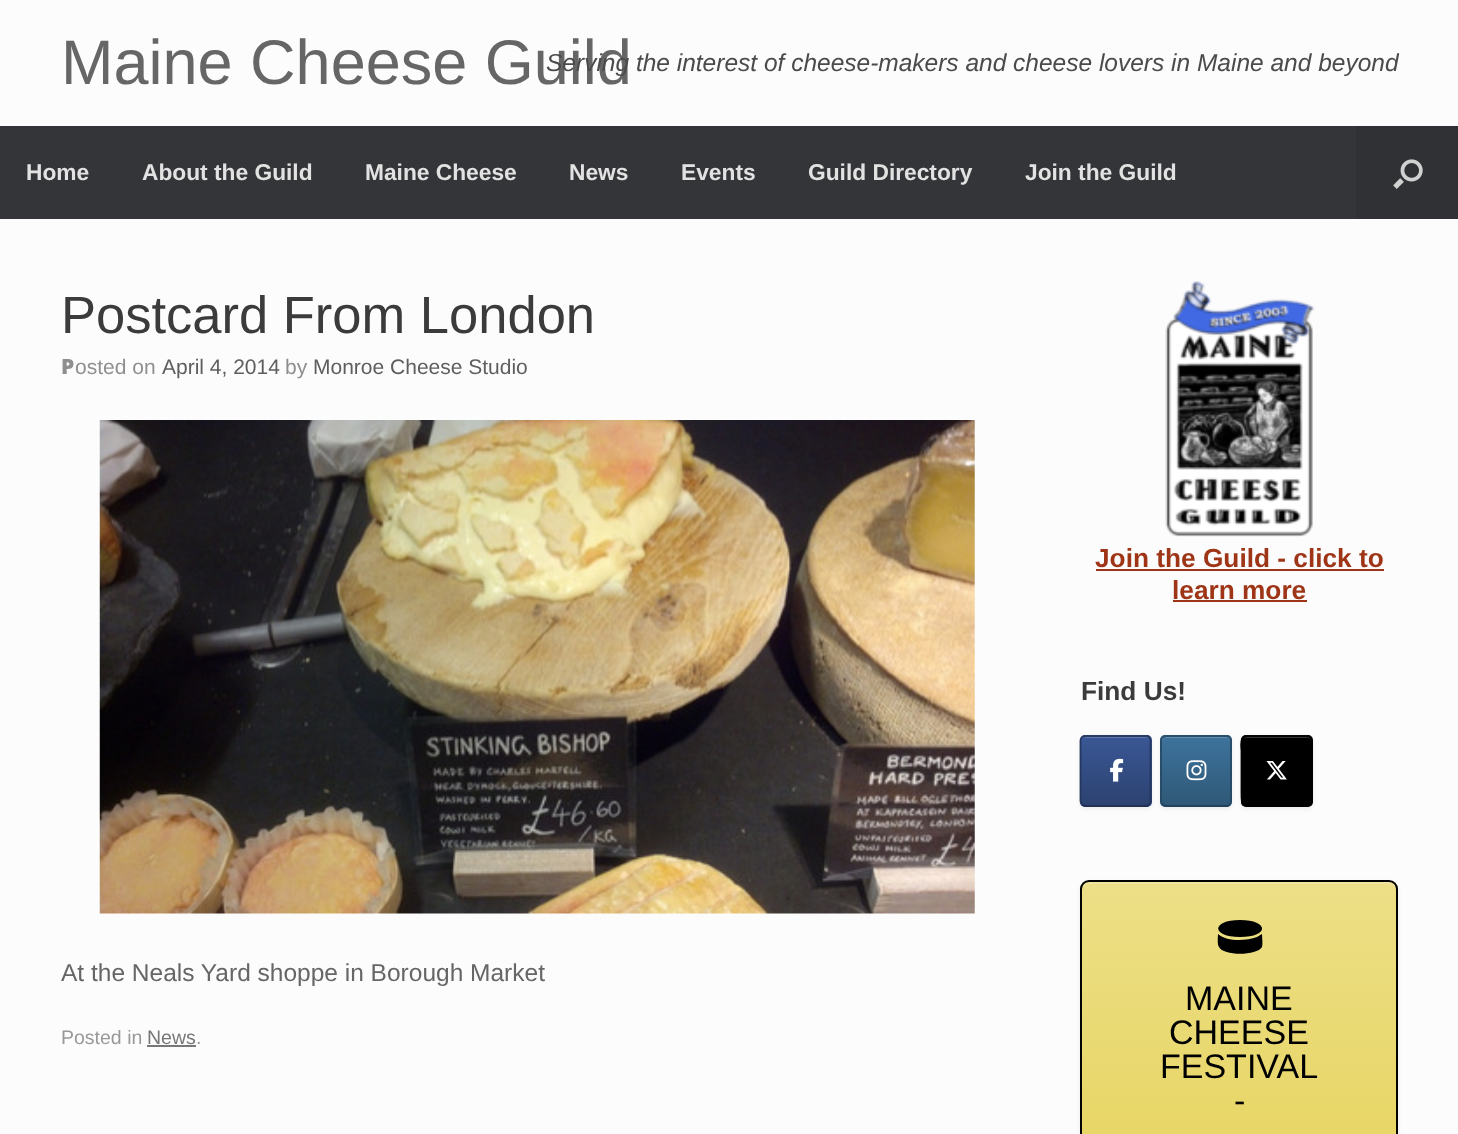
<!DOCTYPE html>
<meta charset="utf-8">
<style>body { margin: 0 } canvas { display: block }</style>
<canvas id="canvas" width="1458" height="1134"></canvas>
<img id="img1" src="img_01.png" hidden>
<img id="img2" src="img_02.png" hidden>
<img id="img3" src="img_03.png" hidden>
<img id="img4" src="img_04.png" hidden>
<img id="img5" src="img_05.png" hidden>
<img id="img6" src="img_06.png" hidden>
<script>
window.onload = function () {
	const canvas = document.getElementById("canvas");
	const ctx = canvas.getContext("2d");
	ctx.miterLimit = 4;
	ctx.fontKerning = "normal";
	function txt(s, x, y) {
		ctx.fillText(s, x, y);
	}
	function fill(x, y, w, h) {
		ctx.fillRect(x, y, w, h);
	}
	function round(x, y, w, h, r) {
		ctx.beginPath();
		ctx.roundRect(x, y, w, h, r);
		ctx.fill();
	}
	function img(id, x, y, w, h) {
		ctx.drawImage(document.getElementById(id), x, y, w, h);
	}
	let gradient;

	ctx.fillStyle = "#FCFCFC";
	fill(0, 0, 1458, 1134);
	ctx.fillStyle = "#343538";
	fill(0, 126, 1356, 93);
	ctx.fillStyle = "#303134";
	fill(1356, 126, 102, 93);
	img("img1", 1393, 159, 30, 30);
	img("img2", 99, 420, 876, 494);
	ctx.fillStyle = "#777777";
	fill(147, 1045, 49, 2);
	img("img3", 1165, 281, 150, 256);
	ctx.fillStyle = "#9E3516";
	fill(1096, 569, 288, 2);
	fill(1173, 600, 134, 2);
	ctx.fillStyle = "rgba(0, 0, 0, 0.07)";
	ctx.filter = "blur(2px)";
	ctx.beginPath();
	ctx.roundRect(1080, 737, 72, 72, 5);
	ctx.fill();
	ctx.filter = "none";
	ctx.save();
	ctx.beginPath();
	ctx.roundRect(1080, 735, 72, 72, 5);
	ctx.clip();
	gradient = ctx.createLinearGradient(1082, 737, 1082, 669);
	gradient.addColorStop(0, "#2C4270");
	gradient.addColorStop(1, "#3A5795");
	ctx.fillStyle = gradient;
	fill(1080, 735, 72, 2);
	gradient = ctx.createLinearGradient(1082, 805, 1082, 737);
	gradient.addColorStop(0, "#2C4270");
	gradient.addColorStop(1, "#3A5795");
	ctx.fillStyle = gradient;
	fill(1080, 737, 72, 68);
	gradient = ctx.createLinearGradient(1082, 873, 1082, 805);
	gradient.addColorStop(0, "#2C4270");
	gradient.addColorStop(1, "#3A5795");
	ctx.fillStyle = gradient;
	fill(1080, 805, 72, 2);
	ctx.restore();
	ctx.fillStyle = "#6179AA";
	ctx.beginPath();
	ctx.moveTo(1085, 738);
	ctx.lineTo(1146, 738);
	ctx.bezierCurveTo(1148, 738, 1150, 740, 1150, 742);
	ctx.bezierCurveTo(1150, 735, 1141, 737, 1136, 737);
	ctx.lineTo(1096, 737);
	ctx.bezierCurveTo(1091, 737, 1082, 735, 1082, 742);
	ctx.bezierCurveTo(1082, 740, 1083, 738, 1085, 738);
	ctx.closePath();
	ctx.fill();
	ctx.beginPath();
	ctx.moveTo(1082, 737.5);
	ctx.bezierCurveTo(1083, 736.5, 1084, 736, 1085.5, 736);
	ctx.lineTo(1146, 736);
	ctx.bezierCurveTo(1147, 736, 1148.5, 736.5, 1149, 737.5);
	ctx.strokeStyle = "#273B65";
	ctx.lineWidth = 1.8;
	ctx.stroke();
	ctx.beginPath();
	ctx.moveTo(1149, 737.5);
	ctx.bezierCurveTo(1150, 738, 1150.5, 739.5, 1150.5, 740.5);
	ctx.lineTo(1150.5, 801);
	ctx.bezierCurveTo(1150.5, 802.5, 1150, 803.5, 1149, 804.5);
	ctx.strokeStyle = "#25375E";
	ctx.stroke();
	ctx.beginPath();
	ctx.moveTo(1149, 804.5);
	ctx.bezierCurveTo(1148.5, 805.5, 1147, 806, 1146, 806);
	ctx.lineTo(1085.5, 806);
	ctx.bezierCurveTo(1084, 806, 1083, 805.5, 1082, 804.5);
	ctx.strokeStyle = "#203053";
	ctx.stroke();
	ctx.beginPath();
	ctx.moveTo(1082, 804.5);
	ctx.bezierCurveTo(1081, 803.5, 1080.5, 802.5, 1080.5, 801);
	ctx.lineTo(1080.5, 740.5);
	ctx.bezierCurveTo(1080.5, 739.5, 1081, 738, 1082, 737.5);
	ctx.strokeStyle = "#25375E";
	ctx.stroke();
	img("img4", 1110, 758, 14, 24);
	ctx.fillStyle = "rgba(0, 0, 0, 0.07)";
	ctx.filter = "blur(2px)";
	ctx.beginPath();
	ctx.roundRect(1160, 737, 72, 72, 5);
	ctx.fill();
	ctx.filter = "none";
	ctx.save();
	ctx.beginPath();
	ctx.roundRect(1160, 735, 72, 72, 5);
	ctx.clip();
	gradient = ctx.createLinearGradient(1162, 737, 1162, 669);
	gradient.addColorStop(0, "#2F5877");
	gradient.addColorStop(1, "#3D739C");
	ctx.fillStyle = gradient;
	fill(1160, 735, 72, 2);
	gradient = ctx.createLinearGradient(1162, 805, 1162, 737);
	gradient.addColorStop(0, "#2F5877");
	gradient.addColorStop(1, "#3D739C");
	ctx.fillStyle = gradient;
	fill(1160, 737, 72, 68);
	gradient = ctx.createLinearGradient(1162, 873, 1162, 805);
	gradient.addColorStop(0, "#2F5877");
	gradient.addColorStop(1, "#3D739C");
	ctx.fillStyle = gradient;
	fill(1160, 805, 72, 2);
	ctx.restore();
	ctx.fillStyle = "#648FB0";
	ctx.beginPath();
	ctx.moveTo(1166, 738);
	ctx.lineTo(1226, 738);
	ctx.bezierCurveTo(1228, 738, 1230, 740, 1230, 742);
	ctx.bezierCurveTo(1230, 735, 1221, 737, 1216, 737);
	ctx.lineTo(1176, 737);
	ctx.bezierCurveTo(1171, 737, 1162, 735, 1162, 742);
	ctx.bezierCurveTo(1162, 740, 1164, 738, 1166, 738);
	ctx.closePath();
	ctx.fill();
	ctx.beginPath();
	ctx.moveTo(1162.5, 737.5);
	ctx.bezierCurveTo(1163.5, 736.5, 1164.5, 736, 1166, 736);
	ctx.lineTo(1226.5, 736);
	ctx.bezierCurveTo(1227.5, 736, 1229, 736.5, 1229.5, 737.5);
	ctx.strokeStyle = "#2A506C";
	ctx.stroke();
	ctx.beginPath();
	ctx.moveTo(1229.5, 737.5);
	ctx.bezierCurveTo(1230.5, 738, 1231, 739.5, 1231, 740.5);
	ctx.lineTo(1231, 801);
	ctx.bezierCurveTo(1231, 802.5, 1230.5, 803.5, 1229.5, 804.5);
	ctx.strokeStyle = "#274A65";
	ctx.stroke();
	ctx.beginPath();
	ctx.moveTo(1229.5, 804.5);
	ctx.bezierCurveTo(1229, 805.5, 1227.5, 806, 1226.5, 806);
	ctx.lineTo(1166, 806);
	ctx.bezierCurveTo(1164.5, 806, 1163.5, 805.5, 1162.5, 804.5);
	ctx.strokeStyle = "#23425A";
	ctx.stroke();
	ctx.beginPath();
	ctx.moveTo(1162.5, 804.5);
	ctx.bezierCurveTo(1161.5, 803.5, 1161, 802.5, 1161, 801);
	ctx.lineTo(1161, 740.5);
	ctx.bezierCurveTo(1161, 739.5, 1161.5, 738, 1162.5, 737.5);
	ctx.strokeStyle = "#274A65";
	ctx.stroke();
	img("img5", 1186, 760, 21, 21);
	ctx.fillStyle = "rgba(0, 0, 0, 0.07)";
	ctx.filter = "blur(2px)";
	ctx.beginPath();
	ctx.roundRect(1241, 737, 72, 72, 5);
	ctx.fill();
	ctx.filter = "none";
	ctx.fillStyle = "#000000";
	round(1241, 735, 72, 72, 5);
	ctx.fillStyle = "#333333";
	ctx.beginPath();
	ctx.moveTo(1246, 738);
	ctx.lineTo(1307, 738);
	ctx.bezierCurveTo(1309, 738, 1311, 740, 1311, 742);
	ctx.lineTo(1311, 741);
	ctx.bezierCurveTo(1311, 739, 1309, 737, 1307, 737);
	ctx.lineTo(1247, 737);
	ctx.bezierCurveTo(1246, 737, 1244, 738, 1244, 739);
	ctx.closePath();
	ctx.fill();
	ctx.beginPath();
	ctx.moveTo(1243, 737.5);
	ctx.bezierCurveTo(1244, 736.5, 1245, 736, 1246.5, 736);
	ctx.lineTo(1307, 736);
	ctx.bezierCurveTo(1308, 736, 1309.5, 736.5, 1310, 737.5);
	ctx.strokeStyle = "#050505";
	ctx.stroke();
	ctx.beginPath();
	ctx.moveTo(1310, 737.5);
	ctx.bezierCurveTo(1313, 740.5, 1311.5, 749, 1311.5, 751);
	ctx.lineTo(1311.5, 791);
	ctx.bezierCurveTo(1311.5, 807, 1313, 806, 1297, 806);
	ctx.lineTo(1256.5, 806);
	ctx.bezierCurveTo(1240.5, 806, 1241.5, 807, 1241.5, 791);
	ctx.lineTo(1241.5, 751);
	ctx.bezierCurveTo(1241.5, 749, 1240, 740.5, 1243, 737.5);
	ctx.strokeStyle = "#000000";
	ctx.stroke();
	img("img6", 1266, 761, 21, 19);
	ctx.fillStyle = "rgba(0, 0, 0, 0.07)";
	ctx.filter = "blur(2px)";
	ctx.beginPath();
	ctx.roundRect(1080, 882, 318, 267, 9);
	ctx.fill();
	ctx.filter = "none";
	ctx.save();
	ctx.beginPath();
	ctx.roundRect(1080, 880, 318, 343, 9);
	ctx.clip();
	gradient = ctx.createLinearGradient(1082, 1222, 1082, 882);
	gradient.addColorStop(0, "#E6D35B");
	gradient.addColorStop(1, "#EDDF87");
	ctx.fillStyle = gradient;
	fill(1080, 882, 318, 252);
	ctx.restore();
	ctx.fillStyle = "rgba(255, 255, 255, 0.2)";
	ctx.beginPath();
	ctx.moveTo(1088, 884);
	ctx.lineTo(1390, 884);
	ctx.bezierCurveTo(1393, 884, 1396, 887, 1396, 891);
	ctx.lineTo(1396, 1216);
	ctx.bezierCurveTo(1396, 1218, 1396, 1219, 1395, 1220);
	ctx.bezierCurveTo(1396, 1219, 1397, 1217, 1397, 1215);
	ctx.lineTo(1397, 889);
	ctx.bezierCurveTo(1397, 885, 1394, 882, 1390, 882);
	ctx.lineTo(1089, 882);
	ctx.bezierCurveTo(1085, 882, 1082, 885, 1082, 889);
	ctx.lineTo(1082, 891);
	ctx.bezierCurveTo(1082, 887, 1085, 884, 1088, 884);
	ctx.closePath();
	ctx.fill();
	ctx.beginPath();
	ctx.roundRect(1081, 881, 316, 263, 8);
	ctx.lineWidth = 2;
	ctx.stroke();
	ctx.fillStyle = "#000000";
	ctx.beginPath();
	ctx.moveTo(1240, 937);
	ctx.bezierCurveTo(1211, 937, 1211, 920, 1240, 920);
	ctx.bezierCurveTo(1269, 920, 1270, 937, 1240, 937);
	ctx.closePath();
	ctx.moveTo(1257, 937);
	ctx.lineTo(1262, 934);
	ctx.bezierCurveTo(1262, 937, 1263, 944, 1262, 947);
	ctx.bezierCurveTo(1257, 956, 1223, 956, 1219, 947);
	ctx.bezierCurveTo(1217, 944, 1218, 937, 1218, 934);
	ctx.bezierCurveTo(1227, 942, 1246, 941, 1257, 937);
	ctx.closePath();
	ctx.fill();
	ctx.font = "63px Liberation Sans";
	ctx.fillStyle = "#666666";
	txt("Maine Cheese Guild", 61, 84);
	ctx.font = "italic 24.5px Liberation Sans";
	ctx.fillStyle = "#4B4B4B";
	txt("Serving the interest of cheese-makers and cheese lovers in Maine and beyond", 546, 71);
	ctx.font = "bold 22.75px Liberation Sans";
	ctx.fillStyle = "#E2E2E2";
	txt("Home", 26, 180);
	txt("About the Guild", 142, 180);
	txt("Maine Cheese", 365, 180);
	txt("News", 569, 180);
	txt("Events", 681, 180);
	txt("Guild Directory", 808, 180);
	txt("Join the Guild", 1025, 180);
	ctx.font = "52.5px Liberation Sans";
	ctx.fillStyle = "#3B3B3B";
	txt("Postcard From London", 61, 333);
	ctx.font = "900 21px Noto Sans";
	ctx.fillStyle = "#8F8F8F";
	txt("P", 61, 374);
	ctx.font = "21px Liberation Sans";
	txt("osted on", 75, 374);
	ctx.fillStyle = "#5E5E5E";
	txt("April 4, 2014", 162, 374);
	ctx.fillStyle = "#8F8F8F";
	txt("by", 285, 374);
	ctx.fillStyle = "#5E5E5E";
	txt("Monroe Cheese Studio", 313, 374);
	ctx.font = "24.5px Liberation Sans";
	ctx.fillStyle = "#666666";
	txt("At the Neals Yard shoppe in Borough Market", 61, 981);
	ctx.font = "19.5px Liberation Sans";
	ctx.fillStyle = "#999999";
	txt("Posted in", 61, 1044);
	ctx.fillStyle = "#777777";
	txt("News", 147, 1044);
	ctx.fillStyle = "#999999";
	txt(".", 196, 1044);
	ctx.font = "bold 26.25px Liberation Sans";
	ctx.fillStyle = "#9E3516";
	txt("Join the Guild - click to", 1095, 567);
	txt("learn more", 1172, 599);
	ctx.fillStyle = "#3B3B3B";
	txt("Find Us!", 1081, 700);
	ctx.font = "34px Liberation Sans";
	ctx.fillStyle = "#000000";
	txt("MAINE", 1185, 1010);
	txt("CHEESE", 1169, 1044);
	txt("FESTIVAL", 1160, 1078);
	txt("-", 1234, 1112);
};
</script>
